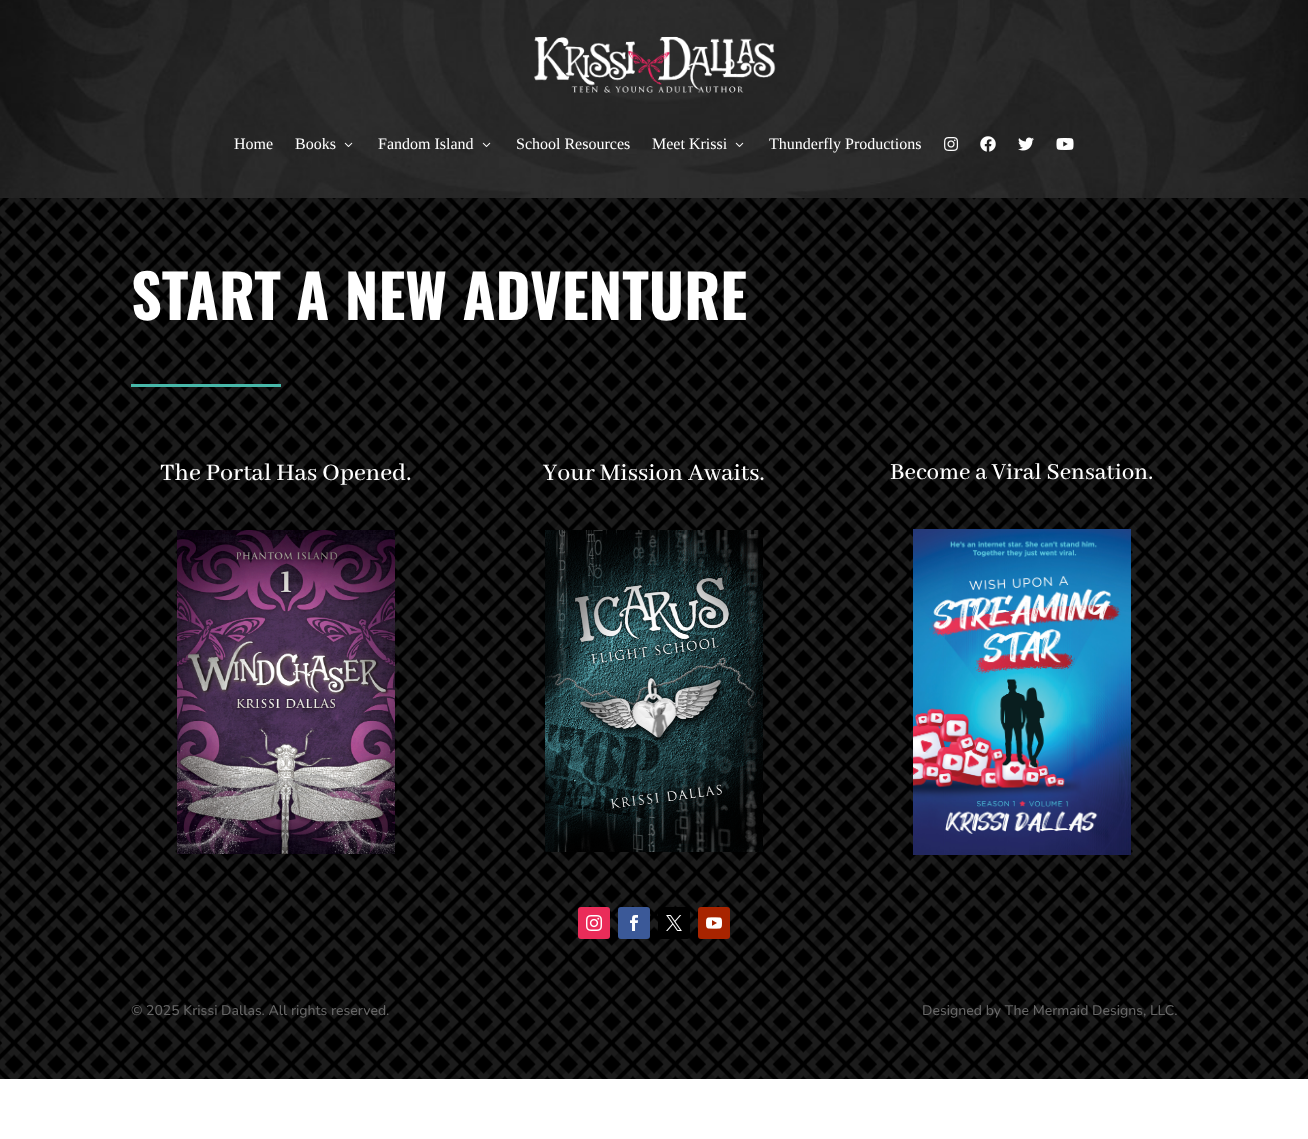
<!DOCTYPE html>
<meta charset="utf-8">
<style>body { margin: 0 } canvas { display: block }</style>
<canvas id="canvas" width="1308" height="1139"></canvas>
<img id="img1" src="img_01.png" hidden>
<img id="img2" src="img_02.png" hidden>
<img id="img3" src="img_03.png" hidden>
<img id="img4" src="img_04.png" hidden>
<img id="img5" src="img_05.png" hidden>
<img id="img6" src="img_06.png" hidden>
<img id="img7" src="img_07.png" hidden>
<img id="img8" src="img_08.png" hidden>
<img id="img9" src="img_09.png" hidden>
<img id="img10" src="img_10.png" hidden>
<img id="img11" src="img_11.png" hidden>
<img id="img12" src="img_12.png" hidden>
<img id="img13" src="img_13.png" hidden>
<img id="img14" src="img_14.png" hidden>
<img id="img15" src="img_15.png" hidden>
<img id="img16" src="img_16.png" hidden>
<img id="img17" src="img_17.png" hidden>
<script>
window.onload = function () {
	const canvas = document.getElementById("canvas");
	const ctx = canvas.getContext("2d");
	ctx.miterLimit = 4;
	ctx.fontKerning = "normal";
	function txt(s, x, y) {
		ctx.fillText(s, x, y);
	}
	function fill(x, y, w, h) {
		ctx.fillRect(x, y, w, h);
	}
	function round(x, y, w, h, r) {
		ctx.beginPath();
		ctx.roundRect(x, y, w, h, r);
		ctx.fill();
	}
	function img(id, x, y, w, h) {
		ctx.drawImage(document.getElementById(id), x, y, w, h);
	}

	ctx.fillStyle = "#FFFFFF";
	fill(0, 0, 1308, 1139);
	img("img1", 0, 0, 1308, 198);
	img("img2", 534, 36, 242, 57);
	img("img3", 344, 142, 9, 5);
	img("img4", 482, 142, 9, 5);
	img("img5", 735, 142, 9, 5);
	img("img6", 944, 137, 15, 14);
	img("img7", 980, 136, 16, 16);
	img("img8", 1018, 137, 16, 14);
	img("img9", 1056, 138, 18, 12);
	img("img10", 0, 198, 1308, 881);
	ctx.fillStyle = "#47B8A9";
	fill(131, 384, 150, 3);
	img("img11", 177, 530, 218, 324);
	img("img12", 545, 530, 218, 322);
	img("img13", 913, 529, 218, 326);
	ctx.fillStyle = "#EA2C59";
	round(578, 907, 32, 32, 3);
	img("img14", 586, 915, 16, 16);
	ctx.fillStyle = "#3B5998";
	round(618, 907, 32, 32, 3);
	img("img15", 630, 915, 8, 16);
	ctx.fillStyle = "#000000";
	round(658, 907, 32, 32, 3);
	img("img16", 666, 915, 16, 16);
	ctx.fillStyle = "#A82400";
	round(698, 907, 32, 32, 3);
	img("img17", 706, 917, 16, 12);
	ctx.font = "16px Liberation Serif";
	ctx.fillStyle = "#FFFFFF";
	txt("Home", 234, 149);
	txt("Books", 295, 149);
	txt("Fandom Island", 378, 149);
	txt("School Resources", 516, 149);
	txt("Meet Krissi", 652, 149);
	txt("Thunderfly Productions", 769, 149);
	ctx.font = "bold 60px Oswald";
	txt("START A NEW ADVENTURE", 131, 320);
	ctx.font = "500 26px Abhaya Libre Medium";
	txt("The Portal Has Opened.", 160, 480);
	txt("Your Mission Awaits.", 543, 480);
	ctx.font = "500 25px Abhaya Libre Medium";
	txt("Become a Viral Sensation.", 890, 479);
	ctx.font = "500 14px Nunito";
	ctx.fillStyle = "#666666";
	txt("© 2025 Krissi Dallas. All rights reserved.", 131, 1015);
	txt("Designed by The Mermaid Designs, LLC.", 922, 1015);
};
</script>
